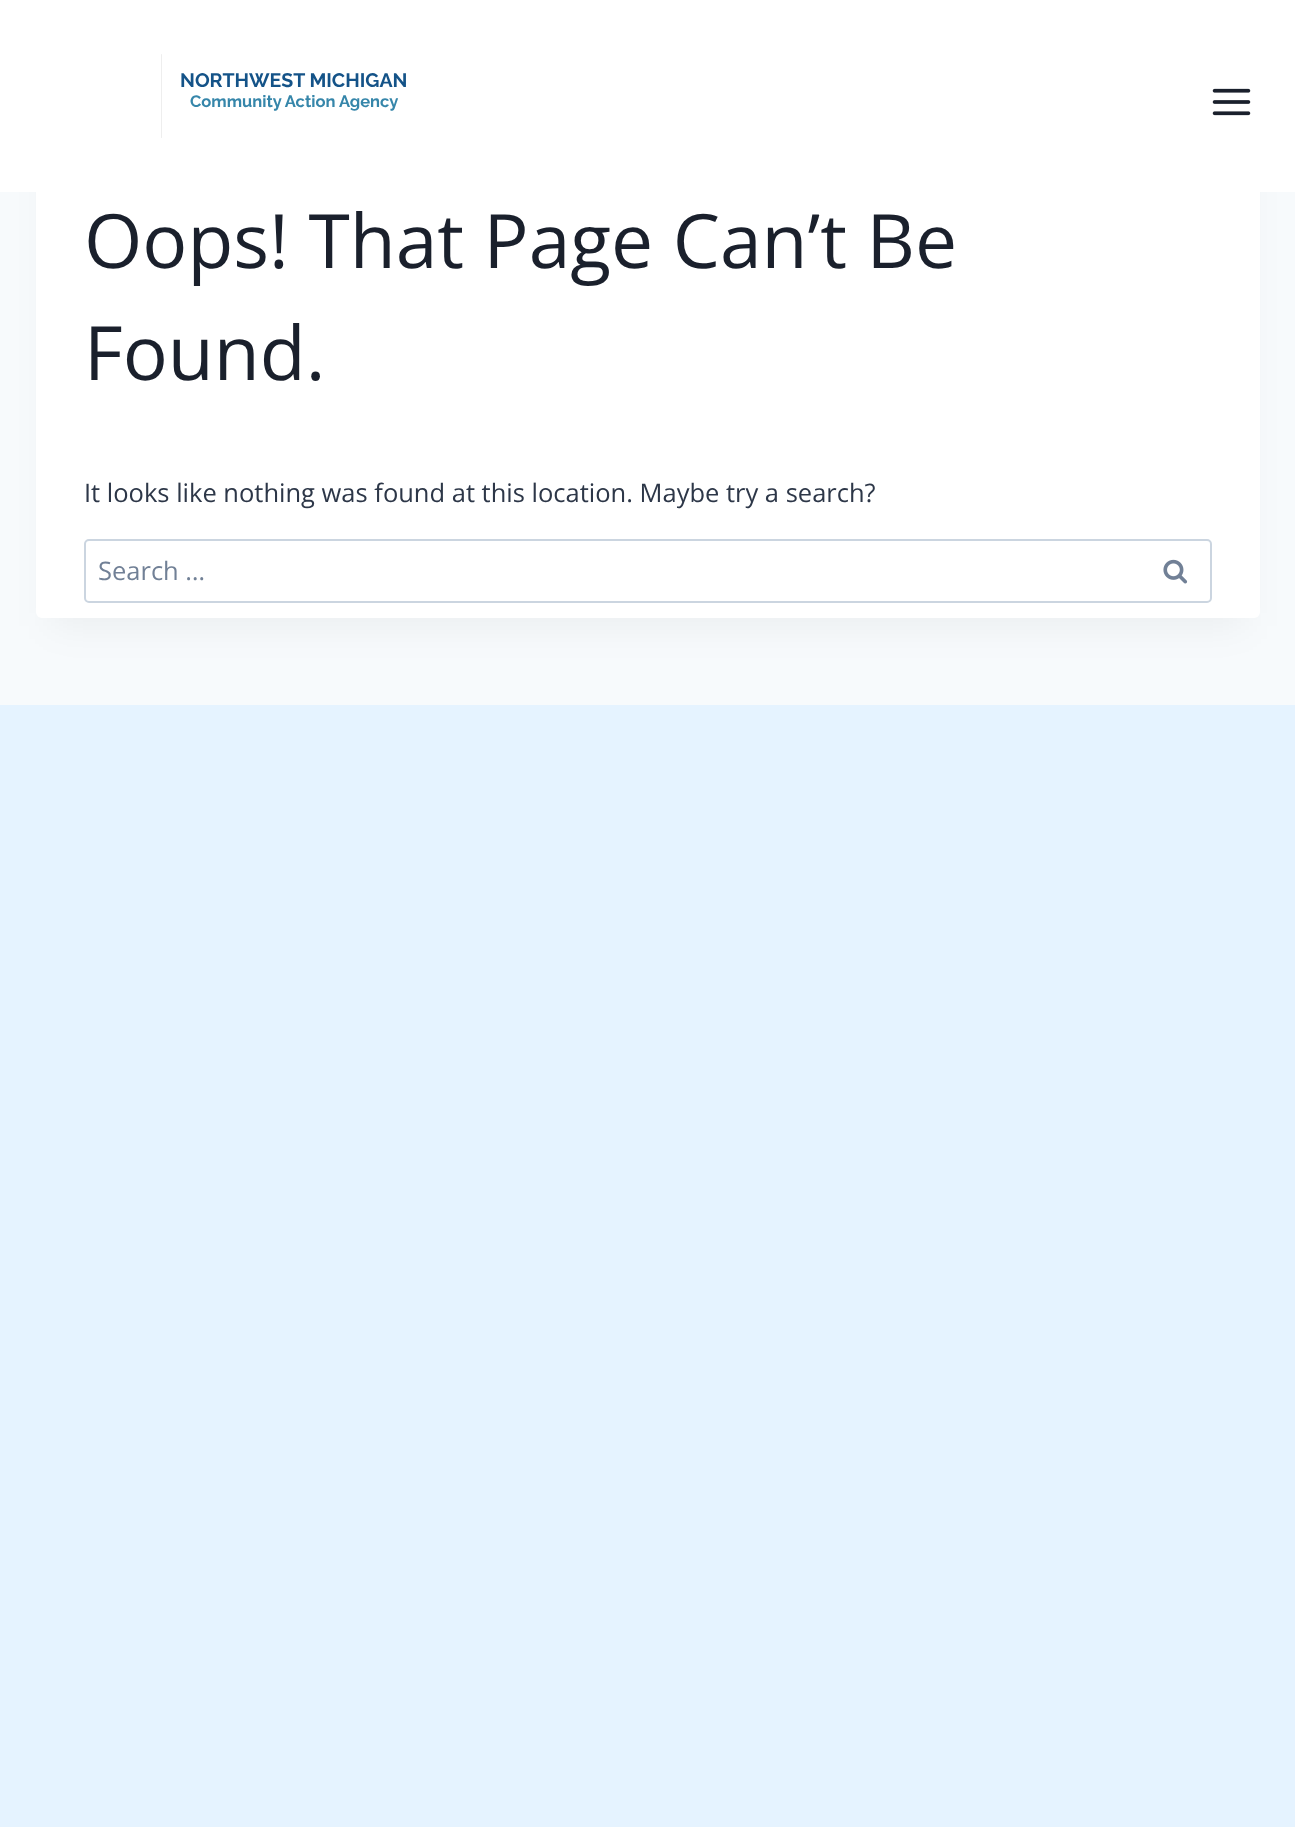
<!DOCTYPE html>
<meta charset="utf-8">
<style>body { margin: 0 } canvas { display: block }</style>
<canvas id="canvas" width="1295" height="1827"></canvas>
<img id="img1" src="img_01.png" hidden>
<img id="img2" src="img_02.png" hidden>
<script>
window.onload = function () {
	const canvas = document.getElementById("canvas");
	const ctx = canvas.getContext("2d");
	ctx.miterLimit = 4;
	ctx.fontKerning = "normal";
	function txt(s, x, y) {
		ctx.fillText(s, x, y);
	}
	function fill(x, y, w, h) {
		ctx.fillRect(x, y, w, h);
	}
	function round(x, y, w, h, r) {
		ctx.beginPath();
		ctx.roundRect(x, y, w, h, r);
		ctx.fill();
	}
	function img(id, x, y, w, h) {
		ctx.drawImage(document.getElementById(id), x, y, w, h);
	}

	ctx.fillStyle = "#F7FAFC";
	fill(0, 0, 1295, 1827);
	ctx.fillStyle = "rgba(0, 0, 0, 0.05)";
	ctx.filter = "blur(19px)";
	ctx.beginPath();
	ctx.rect(51, 173, 1194, 453);
	ctx.fill();
	ctx.filter = "none";
	ctx.fillStyle = "#FFFFFF";
	round(36, 135, 1224, 483, 6);
	fill(0, 0, 1295, 192);
	ctx.fillStyle = "#EEEEEE";
	ctx.beginPath();
	ctx.roundRect(159.5, 52.5, 4, 87, 2);
	ctx.fill();
	ctx.strokeStyle = "#FFFFFF";
	ctx.lineWidth = 3;
	ctx.stroke();
	img("img1", 1212, 88, 39, 28);
	ctx.beginPath();
	ctx.roundRect(85, 540, 1126, 62, 4);
	ctx.strokeStyle = "#CBD5E0";
	ctx.lineWidth = 2;
	ctx.stroke();
	img("img2", 1163, 559, 25, 25);
	ctx.fillStyle = "#E5F3FF";
	fill(0, 705, 1295, 1122);
	ctx.font = "bold 19.5px Raleway";
	ctx.fillStyle = "#145388";
	txt("NORTHWEST MICHIGAN", 180, 87);
	ctx.font = "bold 16.5px Raleway";
	ctx.fillStyle = "#3686AA";
	txt("Community Action Agency", 190, 107);
	ctx.font = "75px Open Sans";
	ctx.fillStyle = "#1A202C";
	txt("Oops! That Page Can’t Be", 84, 268);
	txt("Found.", 84, 380);
	ctx.font = "25.5px Open Sans";
	ctx.fillStyle = "#2D3748";
	txt("It looks like nothing was found at this location. Maybe try a search?", 84, 502);
	ctx.fillStyle = "#718096";
	txt("Search …", 98, 580);
};
</script>
